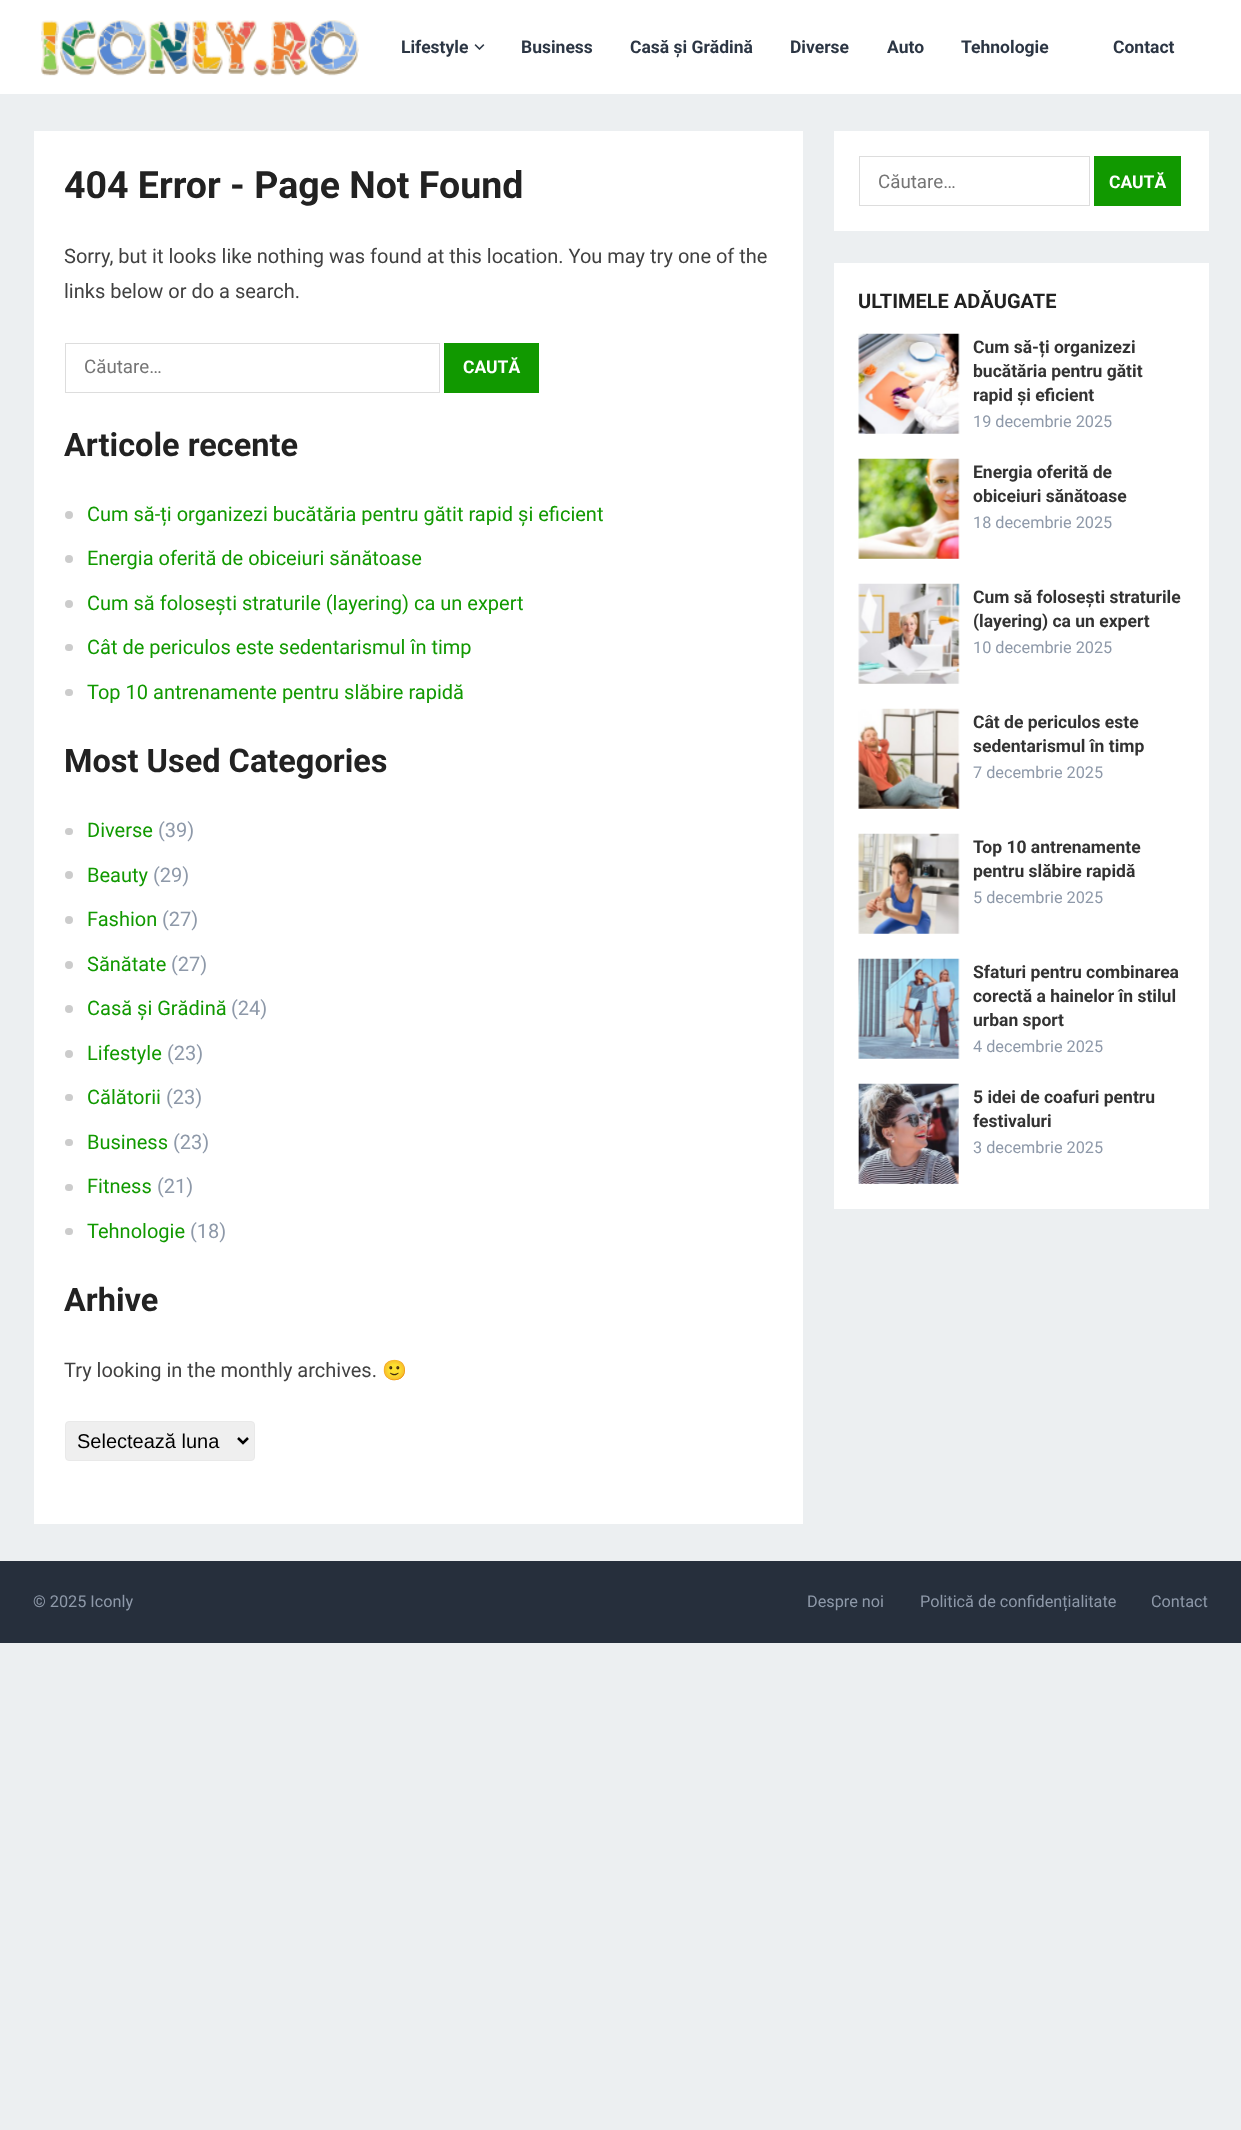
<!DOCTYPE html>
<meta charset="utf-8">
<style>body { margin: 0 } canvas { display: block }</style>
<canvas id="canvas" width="1241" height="2130"></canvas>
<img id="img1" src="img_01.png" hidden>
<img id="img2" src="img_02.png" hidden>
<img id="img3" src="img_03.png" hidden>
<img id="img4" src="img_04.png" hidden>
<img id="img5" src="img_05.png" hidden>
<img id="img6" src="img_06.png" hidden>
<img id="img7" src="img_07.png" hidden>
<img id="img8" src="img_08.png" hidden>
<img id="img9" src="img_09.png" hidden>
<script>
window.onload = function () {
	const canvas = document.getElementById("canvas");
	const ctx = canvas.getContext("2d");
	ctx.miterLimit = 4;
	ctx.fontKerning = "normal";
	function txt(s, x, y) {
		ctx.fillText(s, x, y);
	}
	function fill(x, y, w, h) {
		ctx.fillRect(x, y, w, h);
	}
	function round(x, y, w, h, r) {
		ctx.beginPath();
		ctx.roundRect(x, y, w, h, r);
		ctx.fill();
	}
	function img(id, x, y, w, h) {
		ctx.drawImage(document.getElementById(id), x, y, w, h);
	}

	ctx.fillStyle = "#ECEFF1";
	fill(0, 0, 1241, 2130);
	ctx.fillStyle = "#FFFFFF";
	fill(0, 0, 1241, 94);
	img("img1", 41, 20, 318, 57);
	img("img2", 474, 44, 11, 6);
	fill(34, 131, 769, 1393);
	ctx.strokeStyle = "#DDDDDD";
	ctx.strokeRect(65.5, 343.5, 374, 49);
	ctx.fillStyle = "#119900";
	fill(444, 343, 95, 50);
	ctx.fillStyle = "#CCCCCC";
	ctx.beginPath();
	ctx.arc(69, 515, 4, 0, Math.PI * 2);
	ctx.fill();
	ctx.beginPath();
	ctx.arc(69, 559, 4, 0, Math.PI * 2);
	ctx.fill();
	ctx.beginPath();
	ctx.arc(69, 604, 4, 0, Math.PI * 2);
	ctx.fill();
	round(65, 644, 8, 7, 3.5);
	round(65, 689, 8, 7, 3.5);
	round(65, 828, 8, 7, 3.5);
	ctx.beginPath();
	ctx.arc(69, 875, 4, 0, Math.PI * 2);
	ctx.fill();
	ctx.beginPath();
	ctx.arc(69, 920, 4, 0, Math.PI * 2);
	ctx.fill();
	ctx.beginPath();
	ctx.arc(69, 965, 4, 0, Math.PI * 2);
	ctx.fill();
	ctx.beginPath();
	ctx.arc(69, 1009, 4, 0, Math.PI * 2);
	ctx.fill();
	ctx.beginPath();
	ctx.arc(69, 1054, 4, 0, Math.PI * 2);
	ctx.fill();
	round(65, 1094, 8, 7, 3.5);
	round(65, 1139, 8, 7, 3.5);
	round(65, 1184, 8, 7, 3.5);
	round(65, 1228, 8, 7, 3.5);
	ctx.fillStyle = "#EFEFEF";
	ctx.beginPath();
	ctx.roundRect(65.5, 1421.5, 189, 39, 3.5);
	ctx.fill();
	ctx.strokeStyle = "#E9E9E9";
	ctx.stroke();
	ctx.beginPath();
	ctx.moveTo(238, 1438);
	ctx.lineTo(243, 1443);
	ctx.lineTo(248, 1438);
	ctx.strokeStyle = "#000000";
	ctx.lineWidth = 2.5;
	ctx.stroke();
	ctx.fillStyle = "#FFFFFF";
	fill(834, 131, 375, 100);
	ctx.strokeStyle = "#DDDDDD";
	ctx.lineWidth = 1;
	ctx.strokeRect(859.5, 156.5, 230, 49);
	ctx.fillStyle = "#119900";
	fill(1094, 156, 87, 50);
	ctx.fillStyle = "#FFFFFF";
	fill(834, 263, 375, 946);
	img("img3", 858, 333, 102, 101);
	img("img4", 858, 458, 102, 101);
	img("img5", 858, 583, 102, 101);
	img("img6", 858, 708, 102, 101);
	img("img7", 858, 833, 102, 101);
	img("img8", 858, 958, 102, 101);
	img("img9", 858, 1083, 101, 101);
	ctx.fillStyle = "#262F3C";
	fill(0, 1561, 1241, 82);
	ctx.font = "bold 17.5px Roboto";
	ctx.fillStyle = "#2C3644";
	txt("Lifestyle", 401, 53);
	txt("Business", 521, 53);
	txt("Casă și Grădină", 630, 53);
	txt("Diverse", 790, 53);
	txt("Auto", 887, 53);
	txt("Tehnologie", 961, 53);
	txt("Contact", 1113, 53);
	ctx.font = "bold 37.5px Roboto";
	ctx.fillStyle = "#222222";
	txt("404 Error - Page Not Found", 64, 198);
	ctx.font = "20px Roboto";
	ctx.fillStyle = "#414141";
	txt("Sorry, but it looks like nothing was found at this location. You may try one of the", 64, 263);
	txt("links below or do a search.", 64, 298);
	ctx.font = "18.75px Roboto";
	ctx.fillStyle = "#757575";
	txt("Căutare…", 84, 373);
	ctx.font = "bold 17.5px Roboto";
	ctx.fillStyle = "#FFFFFF";
	txt("CAUTĂ", 463, 373);
	ctx.font = "bold 32.5px Roboto";
	ctx.fillStyle = "#222222";
	txt("Articole recente", 64, 456);
	ctx.font = "20px Roboto";
	ctx.fillStyle = "#119900";
	txt("Cum să-ți organizezi bucătăria pentru gătit rapid și eficient", 87, 521);
	txt("Energia oferită de obiceiuri sănătoase", 87, 565);
	txt("Cum să folosești straturile (layering) ca un expert", 87, 610);
	txt("Cât de periculos este sedentarismul în timp", 87, 654);
	txt("Top 10 antrenamente pentru slăbire rapidă", 87, 699);
	ctx.font = "bold 32.5px Roboto";
	ctx.fillStyle = "#222222";
	txt("Most Used Categories", 64, 772);
	ctx.font = "20px Roboto";
	ctx.fillStyle = "#119900";
	txt("Diverse", 87, 837);
	ctx.fillStyle = "#8E99A9";
	txt("(39)", 158, 837);
	ctx.fillStyle = "#119900";
	txt("Beauty", 87, 882);
	ctx.fillStyle = "#8E99A9";
	txt("(29)", 153, 882);
	ctx.fillStyle = "#119900";
	txt("Fashion", 87, 926);
	ctx.fillStyle = "#8E99A9";
	txt("(27)", 162, 926);
	ctx.fillStyle = "#119900";
	txt("Sănătate", 87, 971);
	ctx.fillStyle = "#8E99A9";
	txt("(27)", 171, 971);
	ctx.fillStyle = "#119900";
	txt("Casă și Grădină", 87, 1015);
	ctx.fillStyle = "#8E99A9";
	txt("(24)", 231, 1015);
	ctx.fillStyle = "#119900";
	txt("Lifestyle", 87, 1060);
	ctx.fillStyle = "#8E99A9";
	txt("(23)", 167, 1060);
	ctx.fillStyle = "#119900";
	txt("Călătorii", 87, 1104);
	ctx.fillStyle = "#8E99A9";
	txt("(23)", 166, 1104);
	ctx.fillStyle = "#119900";
	txt("Business", 87, 1149);
	ctx.fillStyle = "#8E99A9";
	txt("(23)", 173, 1149);
	ctx.fillStyle = "#119900";
	txt("Fitness", 87, 1193);
	ctx.fillStyle = "#8E99A9";
	txt("(21)", 157, 1193);
	ctx.fillStyle = "#119900";
	txt("Tehnologie", 87, 1238);
	ctx.fillStyle = "#8E99A9";
	txt("(18)", 190, 1238);
	ctx.font = "bold 32.5px Roboto";
	ctx.fillStyle = "#222222";
	txt("Arhive", 64, 1311);
	ctx.font = "20px Roboto";
	ctx.fillStyle = "#414141";
	txt("Try looking in the monthly archives.", 64, 1377);
	ctx.font = "20px Noto Color Emoji";
	txt("🙂", 382, 1377);
	ctx.font = "20px Liberation Sans";
	ctx.fillStyle = "#000000";
	txt("Selectează luna", 77, 1448);
	ctx.font = "18.75px Roboto";
	ctx.fillStyle = "#757575";
	txt("Căutare…", 878, 188);
	ctx.font = "bold 17.5px Roboto";
	ctx.fillStyle = "#FFFFFF";
	txt("CAUTĂ", 1109, 188);
	ctx.font = "bold 20px Roboto";
	ctx.fillStyle = "#222222";
	txt("ULTIMELE ADĂUGATE", 858, 308);
	ctx.font = "bold 17.5px Roboto";
	ctx.fillStyle = "#333333";
	txt("Cum să-ți organizezi", 973, 353);
	txt("bucătăria pentru gătit", 973, 377);
	txt("rapid și eficient", 973, 401);
	ctx.font = "16.25px Roboto";
	ctx.fillStyle = "#8E99A9";
	txt("19 decembrie 2025", 973, 427);
	ctx.font = "bold 17.5px Roboto";
	ctx.fillStyle = "#333333";
	txt("Energia oferită de", 973, 478);
	txt("obiceiuri sănătoase", 973, 502);
	ctx.font = "16.25px Roboto";
	ctx.fillStyle = "#8E99A9";
	txt("18 decembrie 2025", 973, 528);
	ctx.font = "bold 17.5px Roboto";
	ctx.fillStyle = "#333333";
	txt("Cum să folosești straturile", 973, 603);
	txt("(layering) ca un expert", 973, 627);
	ctx.font = "16.25px Roboto";
	ctx.fillStyle = "#8E99A9";
	txt("10 decembrie 2025", 973, 653);
	ctx.font = "bold 17.5px Roboto";
	ctx.fillStyle = "#333333";
	txt("Cât de periculos este", 973, 728);
	txt("sedentarismul în timp", 973, 752);
	ctx.font = "16.25px Roboto";
	ctx.fillStyle = "#8E99A9";
	txt("7 decembrie 2025", 973, 778);
	ctx.font = "bold 17.5px Roboto";
	ctx.fillStyle = "#333333";
	txt("Top 10 antrenamente", 973, 853);
	txt("pentru slăbire rapidă", 973, 877);
	ctx.font = "16.25px Roboto";
	ctx.fillStyle = "#8E99A9";
	txt("5 decembrie 2025", 973, 903);
	ctx.font = "bold 17.5px Roboto";
	ctx.fillStyle = "#333333";
	txt("Sfaturi pentru combinarea", 973, 978);
	txt("corectă a hainelor în stilul", 973, 1002);
	txt("urban sport", 973, 1026);
	ctx.font = "16.25px Roboto";
	ctx.fillStyle = "#8E99A9";
	txt("4 decembrie 2025", 973, 1052);
	ctx.font = "bold 17.5px Roboto";
	ctx.fillStyle = "#333333";
	txt("5 idei de coafuri pentru", 973, 1103);
	txt("festivaluri", 973, 1127);
	ctx.font = "16.25px Roboto";
	ctx.fillStyle = "#8E99A9";
	txt("3 decembrie 2025", 973, 1153);
	txt("© 2025 Iconly", 33, 1607);
	txt("Despre noi", 807, 1607);
	txt("Politică de confidențialitate", 920, 1607);
	txt("Contact", 1151, 1607);
};
</script>
